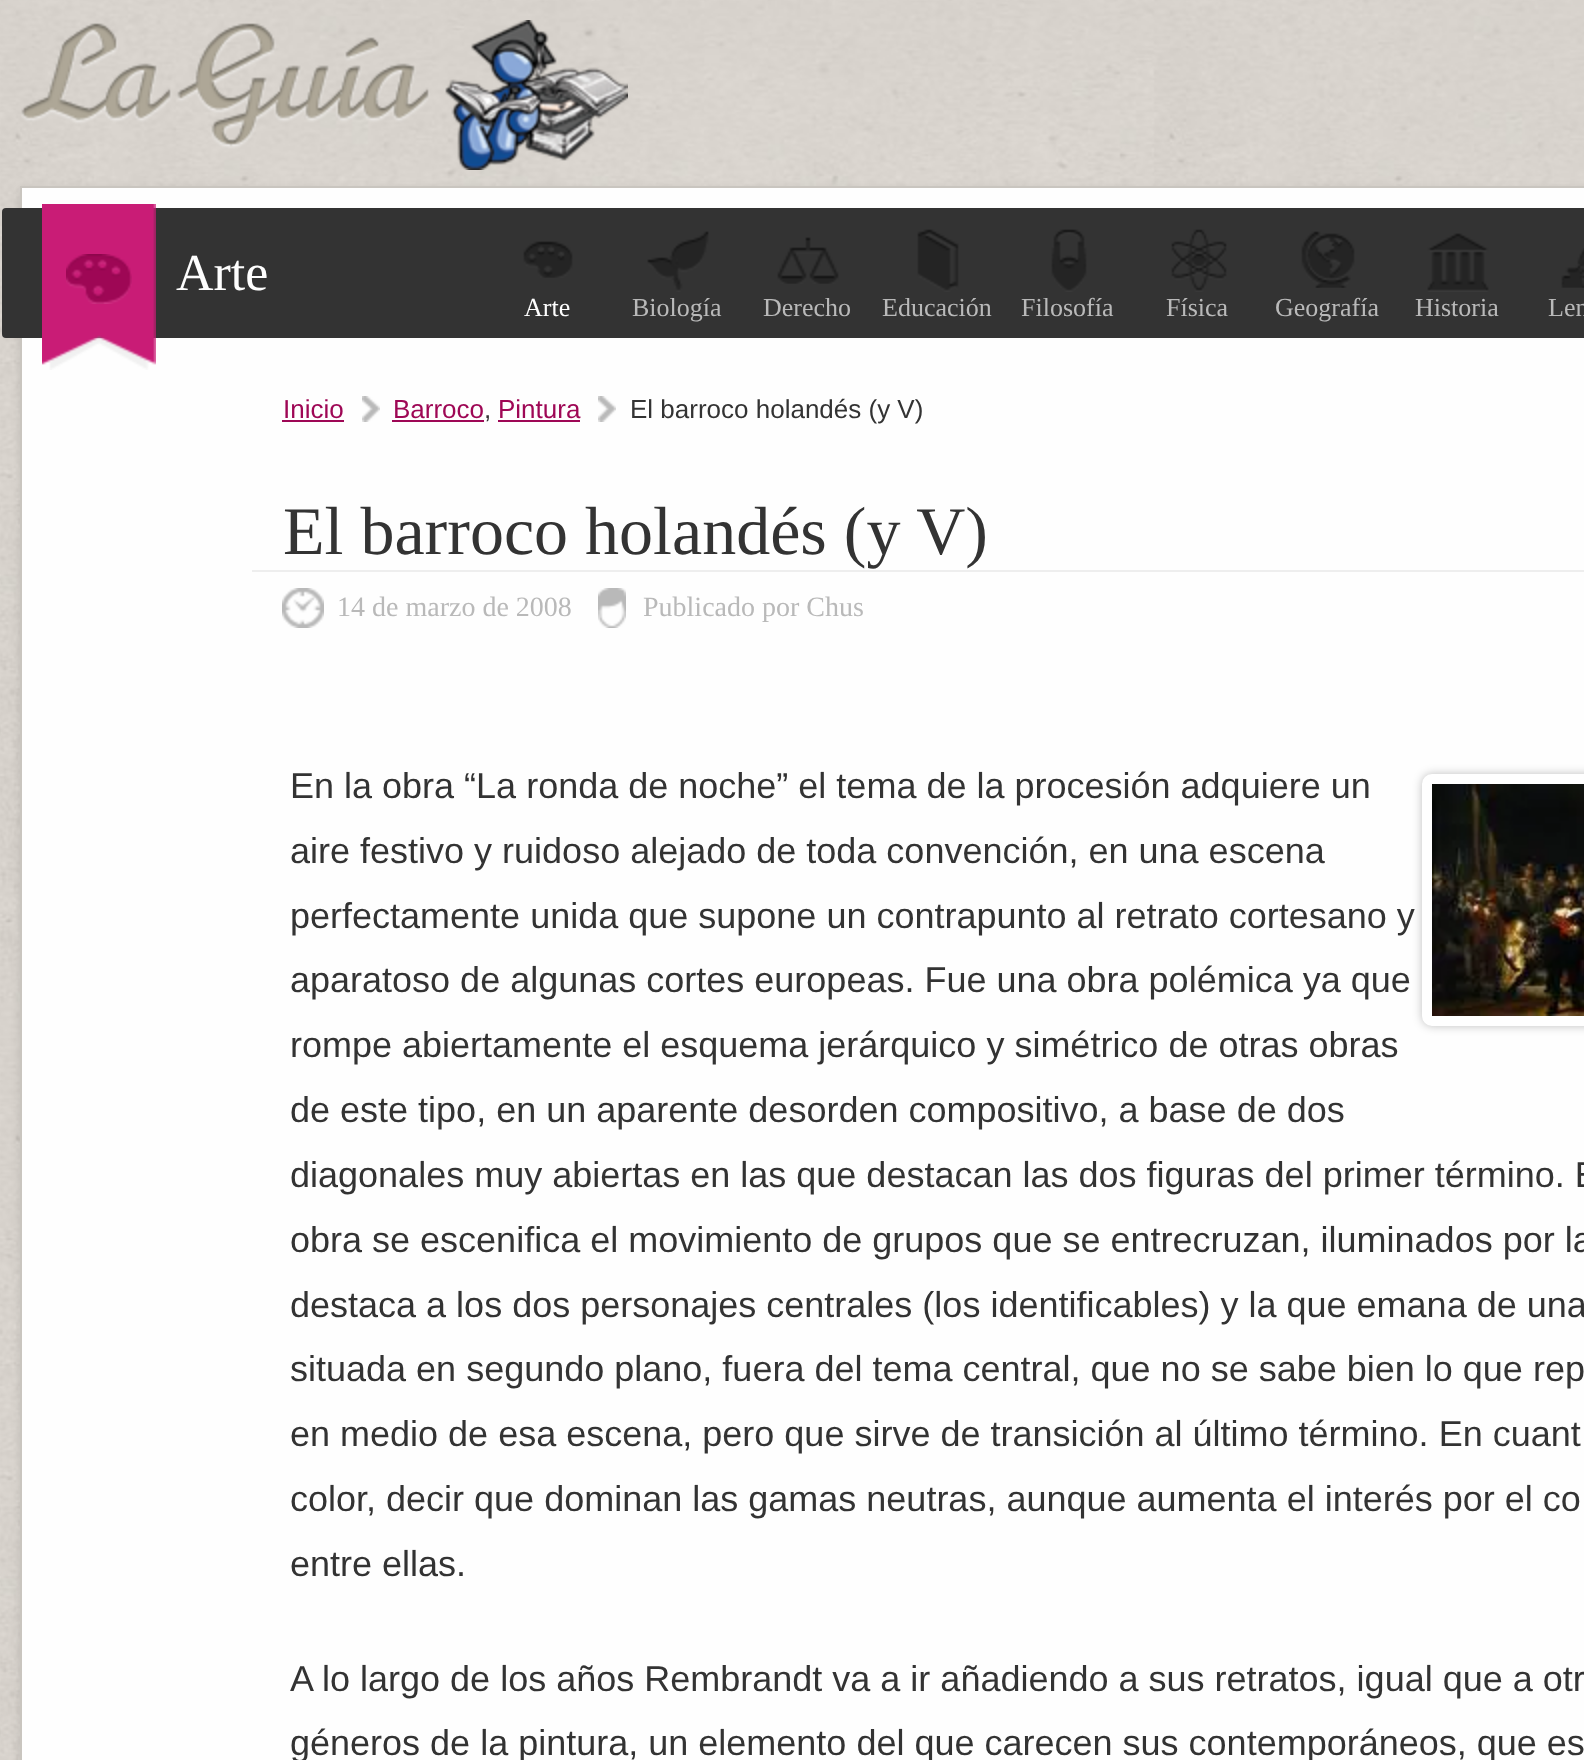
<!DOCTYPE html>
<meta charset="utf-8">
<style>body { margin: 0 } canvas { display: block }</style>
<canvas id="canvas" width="1584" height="1760"></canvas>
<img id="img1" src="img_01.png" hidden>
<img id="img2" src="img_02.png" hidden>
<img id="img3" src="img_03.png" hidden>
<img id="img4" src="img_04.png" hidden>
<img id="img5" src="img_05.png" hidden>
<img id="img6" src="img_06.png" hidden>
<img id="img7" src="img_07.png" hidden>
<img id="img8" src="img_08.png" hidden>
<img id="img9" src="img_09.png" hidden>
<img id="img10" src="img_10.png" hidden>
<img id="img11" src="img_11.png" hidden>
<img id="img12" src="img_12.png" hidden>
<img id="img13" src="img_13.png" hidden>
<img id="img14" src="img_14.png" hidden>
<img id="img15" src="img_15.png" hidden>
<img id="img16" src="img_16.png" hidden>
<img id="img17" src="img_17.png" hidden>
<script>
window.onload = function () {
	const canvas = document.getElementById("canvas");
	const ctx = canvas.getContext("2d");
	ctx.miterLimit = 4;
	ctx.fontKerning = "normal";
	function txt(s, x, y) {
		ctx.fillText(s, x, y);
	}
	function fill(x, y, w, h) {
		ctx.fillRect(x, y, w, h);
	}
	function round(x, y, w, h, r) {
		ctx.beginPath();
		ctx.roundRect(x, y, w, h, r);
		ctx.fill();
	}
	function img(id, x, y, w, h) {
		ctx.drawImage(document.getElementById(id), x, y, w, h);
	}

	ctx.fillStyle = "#FFFFFF";
	fill(0, 0, 1584, 1760);
	img("img1", 0, 0, 1584, 1760);
	img("img2", 21, 20, 607, 150);
	ctx.fillStyle = "rgba(0, 0, 0, 0.1)";
	ctx.filter = "blur(5px)";
	ctx.beginPath();
	ctx.rect(20, 190, 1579, 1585);
	ctx.fill();
	ctx.filter = "none";
	ctx.fillStyle = "#FEFEFE";
	ctx.beginPath();
	ctx.rect(21, 187, 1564, 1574);
	ctx.fill();
	ctx.strokeStyle = "#C9C5BF";
	ctx.lineWidth = 2;
	ctx.stroke();
	ctx.fillStyle = "#333333";
	round(2, 208, 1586, 130, 4);
	img("img3", 42, 204, 114, 166);
	img("img4", 66, 254, 66, 50);
	img("img5", 523, 241, 50, 37);
	img("img6", 647, 231, 62, 61);
	img("img7", 777, 237, 62, 47);
	img("img8", 917, 229, 42, 63);
	img("img9", 1051, 229, 36, 63);
	img("img10", 1171, 229, 56, 63);
	img("img11", 1301, 231, 54, 57);
	img("img12", 1427, 233, 62, 59);
	img("img13", 1561, 248, 23, 40);
	ctx.fillStyle = "#9E0755";
	fill(282, 420, 62, 2);
	img("img14", 362, 396, 18, 26);
	fill(392, 420, 92, 2);
	fill(498, 420, 82, 2);
	img("img14", 598, 396, 18, 26);
	ctx.fillStyle = "#EEEEEE";
	fill(252, 570, 1332, 2);
	img("img15", 282, 588, 42, 40);
	img("img16", 598, 588, 28, 40);
	ctx.fillStyle = "rgba(0, 0, 0, 0.25)";
	ctx.filter = "blur(5px)";
	ctx.beginPath();
	ctx.roundRect(1422, 774, 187, 252, 10);
	ctx.fill();
	ctx.filter = "none";
	ctx.beginPath();
	ctx.roundRect(1427, 779, 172, 242, 5);
	ctx.strokeStyle = "#FFFFFF";
	ctx.lineWidth = 10;
	ctx.stroke();
	img("img17", 1432, 784, 152, 232);
	ctx.font = "52px Liberation Serif";
	ctx.fillStyle = "#FEFEFE";
	txt("Arte", 176, 290);
	ctx.font = "26px Liberation Serif";
	txt("Arte", 524, 316);
	ctx.fillStyle = "#B9B9B9";
	txt("Biología", 632, 316);
	txt("Derecho", 763, 316);
	txt("Educación", 882, 316);
	txt("Filosofía", 1021, 316);
	txt("Física", 1166, 316);
	txt("Geografía", 1275, 316);
	txt("Historia", 1415, 316);
	txt("Len", 1548, 316);
	ctx.font = "26px Liberation Sans";
	ctx.fillStyle = "#9E0755";
	txt("Inicio", 283, 418);
	txt("Barroco", 393, 418);
	ctx.fillStyle = "#333333";
	txt(",", 484, 418);
	ctx.fillStyle = "#9E0755";
	txt("Pintura", 498, 418);
	ctx.fillStyle = "#333333";
	txt("El barroco holandés (y V)", 630, 418);
	ctx.font = "68px Liberation Serif";
	txt("El barroco holandés (y V)", 283, 554);
	ctx.font = "28px Liberation Serif";
	ctx.fillStyle = "#B9B9B9";
	txt("14 de marzo de 2008", 337, 616);
	txt("Publicado por Chus", 643, 616);
	ctx.font = "36px Liberation Sans";
	ctx.fillStyle = "#333333";
	txt("En la obra “La ronda de noche” el tema de la procesión adquiere un", 290, 798);
	txt("aire festivo y ruidoso alejado de toda convención, en una escena", 290, 863);
	txt("perfectamente unida que supone un contrapunto al retrato cortesano y", 290, 928);
	txt("aparatoso de algunas cortes europeas. Fue una obra polémica ya que", 290, 992);
	txt("rompe abiertamente el esquema jerárquico y simétrico de otras obras", 290, 1057);
	txt("de este tipo, en un aparente desorden compositivo, a base de dos", 290, 1122);
	txt("diagonales muy abiertas en las que destacan las dos figuras del primer término. E", 290, 1187);
	txt("obra se escenifica el movimiento de grupos que se entrecruzan, iluminados por la", 290, 1252);
	txt("destaca a los dos personajes centrales (los identificables) y la que emana de una", 290, 1317);
	txt("situada en segundo plano, fuera del tema central, que no se sabe bien lo que rep", 290, 1381);
	txt("en medio de esa escena, pero que sirve de transición al último término. En cuant", 290, 1446);
	txt("color, decir que dominan las gamas neutras, aunque aumenta el interés por el co", 290, 1511);
	txt("entre ellas.", 290, 1576);
	txt("A lo largo de los años Rembrandt va a ir añadiendo a sus retratos, igual que a otr", 290, 1691);
	txt("géneros de la pintura, un elemento del que carecen sus contemporáneos, que es", 290, 1755);
};
</script>
